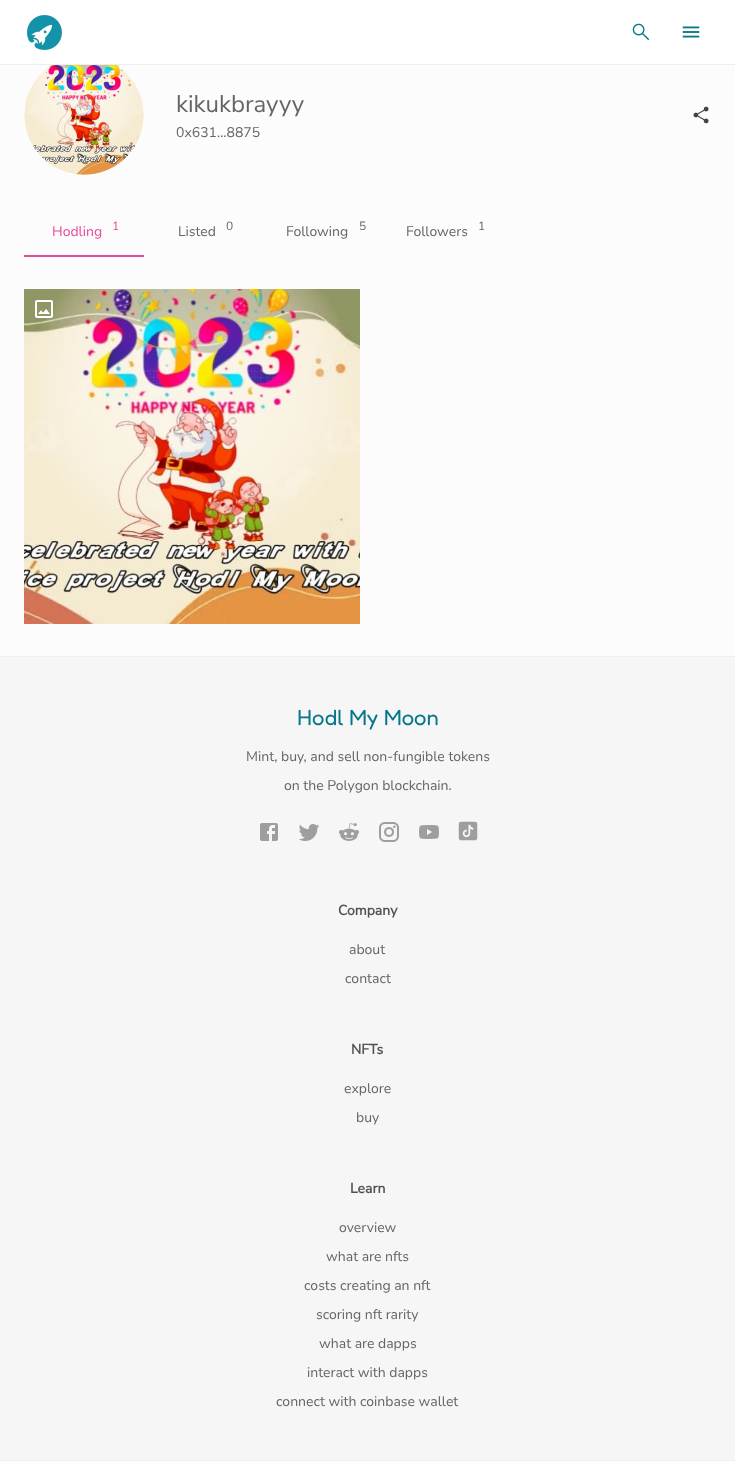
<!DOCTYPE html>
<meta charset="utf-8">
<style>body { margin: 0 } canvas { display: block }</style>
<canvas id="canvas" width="735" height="1462"></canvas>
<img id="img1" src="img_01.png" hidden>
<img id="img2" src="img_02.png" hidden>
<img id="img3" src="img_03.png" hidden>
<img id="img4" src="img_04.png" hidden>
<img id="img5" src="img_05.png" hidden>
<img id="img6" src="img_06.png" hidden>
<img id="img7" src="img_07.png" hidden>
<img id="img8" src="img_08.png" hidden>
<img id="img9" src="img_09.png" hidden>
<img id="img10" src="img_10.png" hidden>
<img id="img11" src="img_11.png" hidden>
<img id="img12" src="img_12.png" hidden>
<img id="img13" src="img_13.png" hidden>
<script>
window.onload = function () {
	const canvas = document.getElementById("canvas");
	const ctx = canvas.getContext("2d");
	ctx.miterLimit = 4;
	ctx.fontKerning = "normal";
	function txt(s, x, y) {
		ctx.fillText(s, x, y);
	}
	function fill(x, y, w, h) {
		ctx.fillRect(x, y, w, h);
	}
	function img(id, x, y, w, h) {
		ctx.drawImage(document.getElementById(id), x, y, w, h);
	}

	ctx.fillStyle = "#FFFFFF";
	fill(0, 0, 735, 1462);
	ctx.fillStyle = "#EEEEEE";
	fill(0, 64, 735, 1);
	img("img1", 27, 15, 35, 35);
	img("img2", 632, 23, 18, 18);
	img("img3", 682, 26, 18, 12);
	ctx.fillStyle = "#FCFCFC";
	fill(0, 65, 735, 591);
	img("img4", 24, 65, 120, 110);
	img("img5", 693, 106, 16, 18);
	ctx.fillStyle = "#EC4899";
	fill(24, 255, 120, 2);
	img("img6", 24, 289, 336, 335);
	img("img7", 35, 300, 18, 18);
	ctx.fillStyle = "#F6F6F6";
	fill(0, 657, 735, 803);
	ctx.fillStyle = "#EEEEEE";
	fill(0, 656, 735, 1);
	fill(0, 1460, 735, 1);
	img("img8", 260, 823, 18, 18);
	img("img9", 298, 824, 22, 17);
	img("img10", 339, 823, 20, 18);
	img("img11", 379, 822, 20, 20);
	img("img12", 419, 825, 20, 14);
	img("img13", 458, 821, 20, 20);
	ctx.font = "24px Nunito Sans";
	ctx.fillStyle = "#656565";
	txt("kikukbrayyy", 176, 112);
	ctx.font = "14px Nunito Sans";
	txt("0x631...8875", 176, 137);
	ctx.fillStyle = "#EC4899";
	txt("Hodling", 52, 236);
	ctx.font = "12px Nunito Sans";
	txt("1", 112, 230);
	ctx.font = "14px Nunito Sans";
	ctx.fillStyle = "#656565";
	txt("Listed", 178, 236);
	ctx.font = "12px Nunito Sans";
	txt("0", 226, 230);
	ctx.font = "14px Nunito Sans";
	txt("Following", 286, 236);
	ctx.font = "12px Nunito Sans";
	txt("5", 359, 230);
	ctx.font = "14px Nunito Sans";
	txt("Followers", 406, 236);
	ctx.font = "12px Nunito Sans";
	txt("1", 478, 230);
	ctx.font = "300 22px Fredoka";
	ctx.fillStyle = "#05778A";
	txt("Hodl My Moon", 297, 725);
	ctx.font = "14px Nunito Sans";
	ctx.fillStyle = "#656565";
	txt("Mint, buy, and sell non-fungible tokens", 246, 761);
	txt("on the Polygon blockchain.", 284, 790);
	ctx.font = "bold 14px Nunito Sans";
	ctx.fillStyle = "#515151";
	txt("Company", 338, 915);
	ctx.font = "14px Nunito Sans";
	ctx.fillStyle = "#656565";
	txt("about", 349, 954);
	txt("contact", 345, 983);
	ctx.font = "bold 14px Nunito Sans";
	ctx.fillStyle = "#515151";
	txt("NFTs", 351, 1054);
	ctx.font = "14px Nunito Sans";
	ctx.fillStyle = "#656565";
	txt("explore", 344, 1093);
	txt("buy", 356, 1122);
	ctx.font = "bold 14px Nunito Sans";
	ctx.fillStyle = "#515151";
	txt("Learn", 350, 1193);
	ctx.font = "14px Nunito Sans";
	ctx.fillStyle = "#656565";
	txt("overview", 339, 1232);
	txt("what are nfts", 326, 1261);
	txt("costs creating an nft", 304, 1290);
	txt("scoring nft rarity", 316, 1319);
	txt("what are dapps", 319, 1348);
	txt("interact with dapps", 307, 1377);
	txt("connect with coinbase wallet", 276, 1406);
};
</script>
